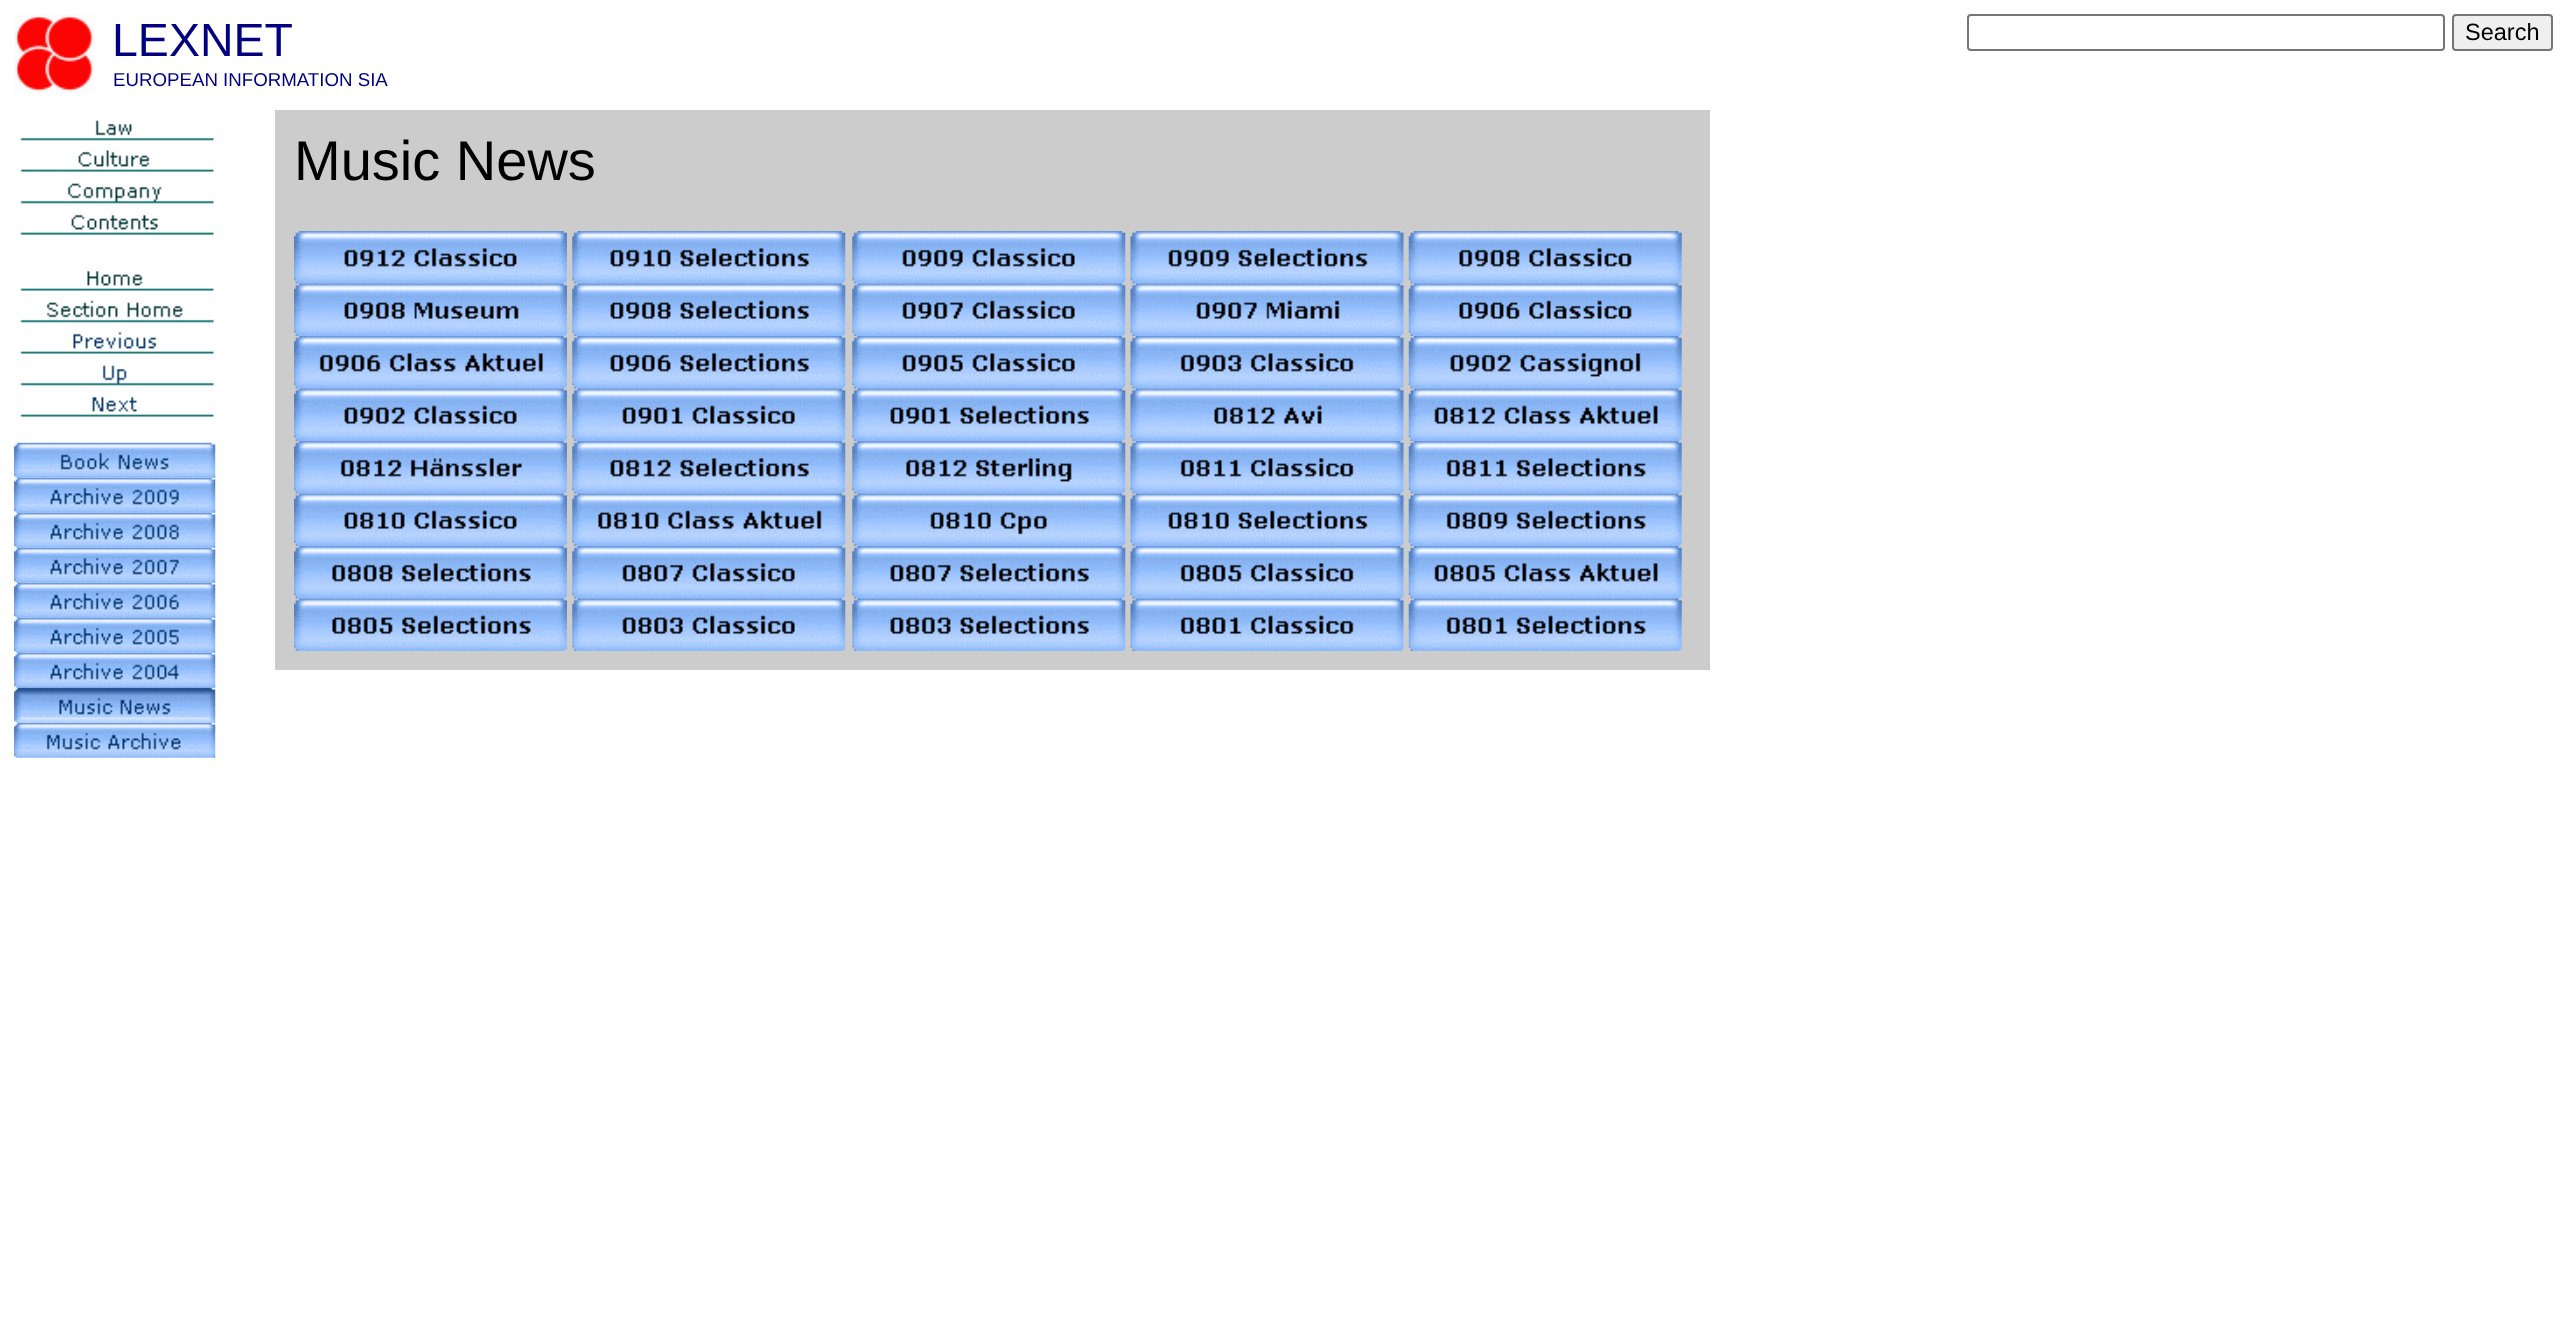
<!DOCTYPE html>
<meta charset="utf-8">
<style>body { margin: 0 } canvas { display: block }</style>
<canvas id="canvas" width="2567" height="1339"></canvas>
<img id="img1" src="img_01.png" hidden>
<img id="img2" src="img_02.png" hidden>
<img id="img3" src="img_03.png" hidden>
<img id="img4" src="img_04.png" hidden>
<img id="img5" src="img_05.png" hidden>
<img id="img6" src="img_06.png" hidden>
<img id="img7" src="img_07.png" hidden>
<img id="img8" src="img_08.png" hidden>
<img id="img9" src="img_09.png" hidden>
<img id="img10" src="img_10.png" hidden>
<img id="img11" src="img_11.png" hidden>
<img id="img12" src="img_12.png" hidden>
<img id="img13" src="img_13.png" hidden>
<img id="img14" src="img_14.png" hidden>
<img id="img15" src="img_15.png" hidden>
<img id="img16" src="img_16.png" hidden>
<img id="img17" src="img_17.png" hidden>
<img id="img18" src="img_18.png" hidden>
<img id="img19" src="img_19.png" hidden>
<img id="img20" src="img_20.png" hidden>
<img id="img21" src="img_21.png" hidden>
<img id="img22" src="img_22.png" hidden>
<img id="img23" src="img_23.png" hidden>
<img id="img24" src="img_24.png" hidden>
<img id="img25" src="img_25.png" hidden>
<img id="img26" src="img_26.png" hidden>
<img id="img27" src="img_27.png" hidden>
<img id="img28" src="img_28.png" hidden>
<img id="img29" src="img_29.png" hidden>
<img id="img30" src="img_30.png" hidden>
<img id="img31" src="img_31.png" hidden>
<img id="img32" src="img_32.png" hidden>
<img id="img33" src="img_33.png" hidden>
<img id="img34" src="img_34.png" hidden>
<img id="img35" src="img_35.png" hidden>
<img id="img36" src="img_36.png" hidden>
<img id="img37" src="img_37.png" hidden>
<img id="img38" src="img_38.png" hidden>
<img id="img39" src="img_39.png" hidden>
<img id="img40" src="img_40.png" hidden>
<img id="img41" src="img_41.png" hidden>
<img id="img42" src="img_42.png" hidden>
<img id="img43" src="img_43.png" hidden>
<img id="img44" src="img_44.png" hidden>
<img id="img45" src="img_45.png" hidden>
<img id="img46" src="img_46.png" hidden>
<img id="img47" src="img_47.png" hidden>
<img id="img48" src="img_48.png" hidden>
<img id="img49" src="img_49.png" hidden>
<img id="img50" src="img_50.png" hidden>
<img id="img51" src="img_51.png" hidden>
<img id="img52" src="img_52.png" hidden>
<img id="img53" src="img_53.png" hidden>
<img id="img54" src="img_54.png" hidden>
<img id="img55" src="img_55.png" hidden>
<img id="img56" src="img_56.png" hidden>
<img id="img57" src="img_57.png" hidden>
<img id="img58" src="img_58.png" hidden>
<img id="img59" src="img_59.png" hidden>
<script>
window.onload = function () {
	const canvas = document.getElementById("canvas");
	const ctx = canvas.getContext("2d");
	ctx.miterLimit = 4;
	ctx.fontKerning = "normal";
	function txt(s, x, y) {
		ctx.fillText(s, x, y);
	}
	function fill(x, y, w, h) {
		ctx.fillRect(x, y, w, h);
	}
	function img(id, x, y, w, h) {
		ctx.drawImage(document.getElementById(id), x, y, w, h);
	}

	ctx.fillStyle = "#FFFFFF";
	fill(0, 0, 2567, 1339);
	img("img1", 14, 14, 81, 79);
	ctx.beginPath();
	ctx.roundRect(1968, 15, 476, 35, 3);
	ctx.strokeStyle = "#767676";
	ctx.lineWidth = 2;
	ctx.stroke();
	ctx.fillStyle = "#EFEFEF";
	ctx.beginPath();
	ctx.roundRect(2453, 15, 99, 35, 3);
	ctx.fill();
	ctx.stroke();
	img("img2", 20, 120, 194, 21);
	img("img3", 20, 150, 194, 22);
	img("img4", 20, 183, 194, 21);
	img("img5", 20, 214, 194, 21);
	img("img6", 20, 270, 194, 21);
	img("img7", 20, 300, 194, 23);
	img("img8", 20, 332, 194, 22);
	img("img9", 20, 365, 194, 21);
	img("img10", 20, 396, 194, 21);
	img("img11", 14, 442, 202, 36);
	img("img12", 14, 477, 202, 36);
	img("img13", 14, 512, 202, 36);
	img("img14", 14, 547, 202, 36);
	img("img15", 14, 582, 202, 36);
	img("img16", 14, 617, 202, 36);
	img("img17", 14, 652, 202, 36);
	img("img18", 14, 687, 202, 36);
	img("img19", 14, 722, 202, 36);
	ctx.fillStyle = "#CCCCCC";
	fill(275, 110, 1435, 560);
	img("img20", 294, 231, 273, 53);
	img("img21", 572, 231, 274, 53);
	img("img22", 852, 231, 274, 53);
	img("img23", 1130, 231, 274, 53);
	img("img24", 1408, 231, 274, 53);
	img("img25", 294, 283, 273, 53);
	img("img26", 572, 283, 274, 53);
	img("img27", 852, 283, 274, 53);
	img("img28", 1130, 283, 274, 53);
	img("img29", 1408, 283, 274, 53);
	img("img30", 294, 336, 273, 53);
	img("img31", 572, 336, 274, 53);
	img("img32", 852, 336, 274, 53);
	img("img33", 1130, 336, 274, 53);
	img("img34", 1408, 336, 274, 53);
	img("img35", 294, 388, 273, 53);
	img("img36", 572, 388, 274, 53);
	img("img37", 852, 388, 274, 53);
	img("img38", 1130, 388, 274, 53);
	img("img39", 1408, 388, 274, 53);
	img("img40", 294, 441, 273, 53);
	img("img41", 572, 441, 274, 53);
	img("img42", 852, 441, 274, 53);
	img("img43", 1130, 441, 274, 53);
	img("img44", 1408, 441, 274, 53);
	img("img45", 294, 493, 273, 53);
	img("img46", 572, 493, 274, 53);
	img("img47", 852, 493, 274, 53);
	img("img48", 1130, 493, 274, 53);
	img("img49", 1408, 493, 274, 53);
	img("img50", 294, 546, 273, 53);
	img("img51", 572, 546, 274, 53);
	img("img52", 852, 546, 274, 53);
	img("img53", 1130, 546, 274, 53);
	img("img54", 1408, 546, 274, 53);
	img("img55", 294, 598, 273, 53);
	img("img56", 572, 598, 274, 53);
	img("img57", 852, 598, 274, 53);
	img("img58", 1130, 598, 274, 53);
	img("img59", 1408, 598, 274, 53);
	ctx.font = "46.5px Liberation Sans";
	ctx.fillStyle = "#000080";
	txt("LEXNET", 112, 56);
	ctx.font = "18.7px Liberation Sans";
	txt("EUROPEAN INFORMATION SIA", 113, 86);
	ctx.font = "23.5px Liberation Sans";
	ctx.fillStyle = "#000000";
	txt("Search", 2465, 40);
	ctx.font = "56px Liberation Sans";
	txt("Music News", 294, 180);
};
</script>
